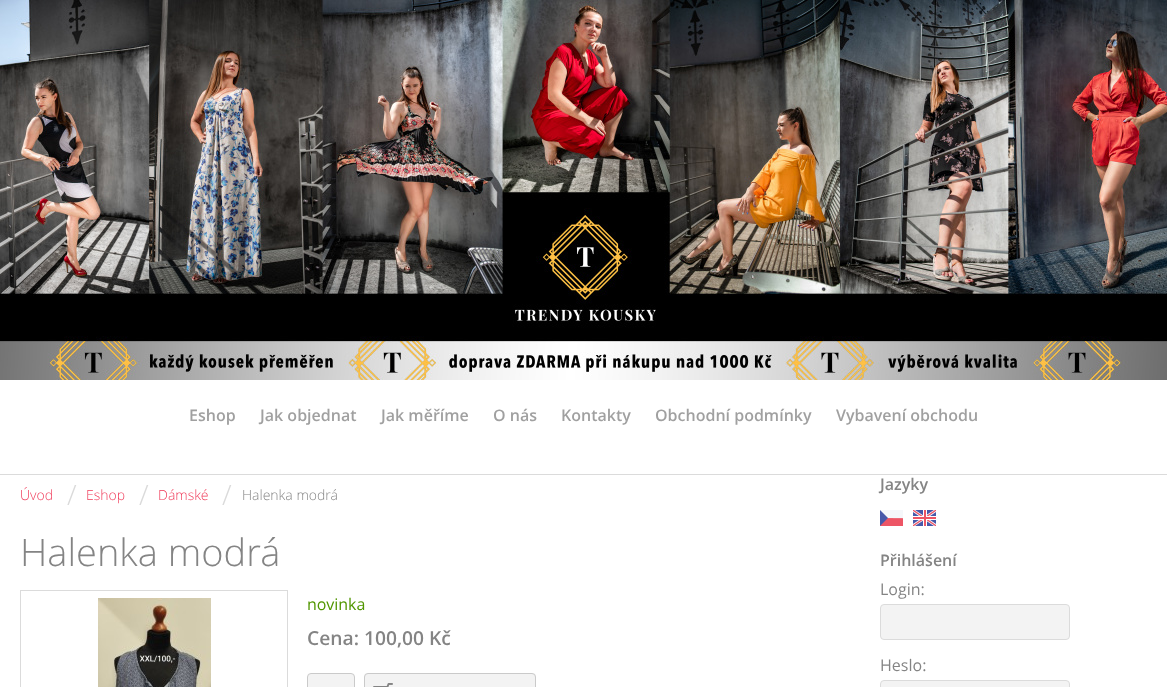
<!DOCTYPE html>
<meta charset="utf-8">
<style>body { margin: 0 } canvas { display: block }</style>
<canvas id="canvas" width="1167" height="687"></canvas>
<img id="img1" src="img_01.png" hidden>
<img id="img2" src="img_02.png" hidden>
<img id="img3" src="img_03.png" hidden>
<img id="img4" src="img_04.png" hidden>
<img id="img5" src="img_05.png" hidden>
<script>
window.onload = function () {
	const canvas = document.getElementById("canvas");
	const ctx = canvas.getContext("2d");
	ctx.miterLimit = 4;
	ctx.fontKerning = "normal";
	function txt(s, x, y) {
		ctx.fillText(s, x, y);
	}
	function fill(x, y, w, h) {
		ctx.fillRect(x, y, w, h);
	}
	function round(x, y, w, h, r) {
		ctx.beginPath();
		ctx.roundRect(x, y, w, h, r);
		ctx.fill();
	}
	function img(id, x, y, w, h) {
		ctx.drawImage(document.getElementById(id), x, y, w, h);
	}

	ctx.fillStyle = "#FFFFFF";
	fill(0, 0, 1167, 687);
	img("img1", 0, 0, 1167, 380);
	ctx.fillStyle = "#DBDBDB";
	fill(0, 474, 1167, 1);
	ctx.strokeStyle = "#DBDBDB";
	ctx.strokeRect(20.5, 590.5, 267, 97);
	img("img2", 98, 598, 113, 89);
	ctx.fillStyle = "#F3F3F3";
	ctx.beginPath();
	ctx.roundRect(307.5, 673.5, 47, 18, 3.5);
	ctx.fill();
	ctx.strokeStyle = "#CACACA";
	ctx.stroke();
	round(364, 673, 172, 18, 4);
	img("img3", 373, 683, 20, 4);
	ctx.beginPath();
	ctx.roundRect(364.5, 673.5, 171, 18, 3.5);
	ctx.stroke();
	img("img4", 880, 510, 23, 16);
	img("img5", 913, 510, 23, 16);
	ctx.beginPath();
	ctx.roundRect(880.5, 604.5, 189, 35, 3.5);
	ctx.fill();
	ctx.strokeStyle = "#DBDBDB";
	ctx.stroke();
	ctx.beginPath();
	ctx.roundRect(880.5, 680.5, 189, 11, 3.5);
	ctx.fill();
	ctx.stroke();
	ctx.font = "600 16px Open Sans";
	ctx.fillStyle = "#A0A0A0";
	txt("Eshop", 189, 421);
	txt("Jak objednat", 260, 421);
	txt("Jak měříme", 381, 421);
	txt("O nás", 493, 421);
	txt("Kontakty", 561, 421);
	txt("Obchodní podmínky", 655, 421);
	txt("Vybavení obchodu", 836, 421);
	ctx.font = "300 14px Open Sans";
	ctx.fillStyle = "#F03A59";
	txt("Úvod", 20, 500);
	ctx.font = "300 28px Open Sans";
	ctx.fillStyle = "#DADADA";
	txt("/", 67, 505);
	ctx.font = "300 14px Open Sans";
	ctx.fillStyle = "#F03A59";
	txt("Eshop", 86, 500);
	ctx.font = "300 28px Open Sans";
	ctx.fillStyle = "#DADADA";
	txt("/", 139, 505);
	ctx.font = "300 14px Open Sans";
	ctx.fillStyle = "#F03A59";
	txt("Dámské", 158, 500);
	ctx.font = "300 28px Open Sans";
	ctx.fillStyle = "#DADADA";
	txt("/", 222, 505);
	ctx.font = "300 14px Open Sans";
	ctx.fillStyle = "#848484";
	txt("Halenka modrá", 242, 500);
	ctx.font = "300 38px Open Sans";
	txt("Halenka modrá", 20, 566);
	ctx.font = "16px Open Sans";
	ctx.fillStyle = "#519600";
	txt("novinka", 307, 610);
	ctx.font = "600 19.25px Open Sans";
	ctx.fillStyle = "#848484";
	txt("Cena: 100,00 Kč", 307, 645);
	ctx.font = "600 16px Open Sans";
	txt("Jazyky", 880, 490);
	txt("Přihlášení", 880, 566);
	ctx.font = "16px Open Sans";
	txt("Login:", 880, 595);
	txt("Heslo:", 880, 671);
};
</script>
